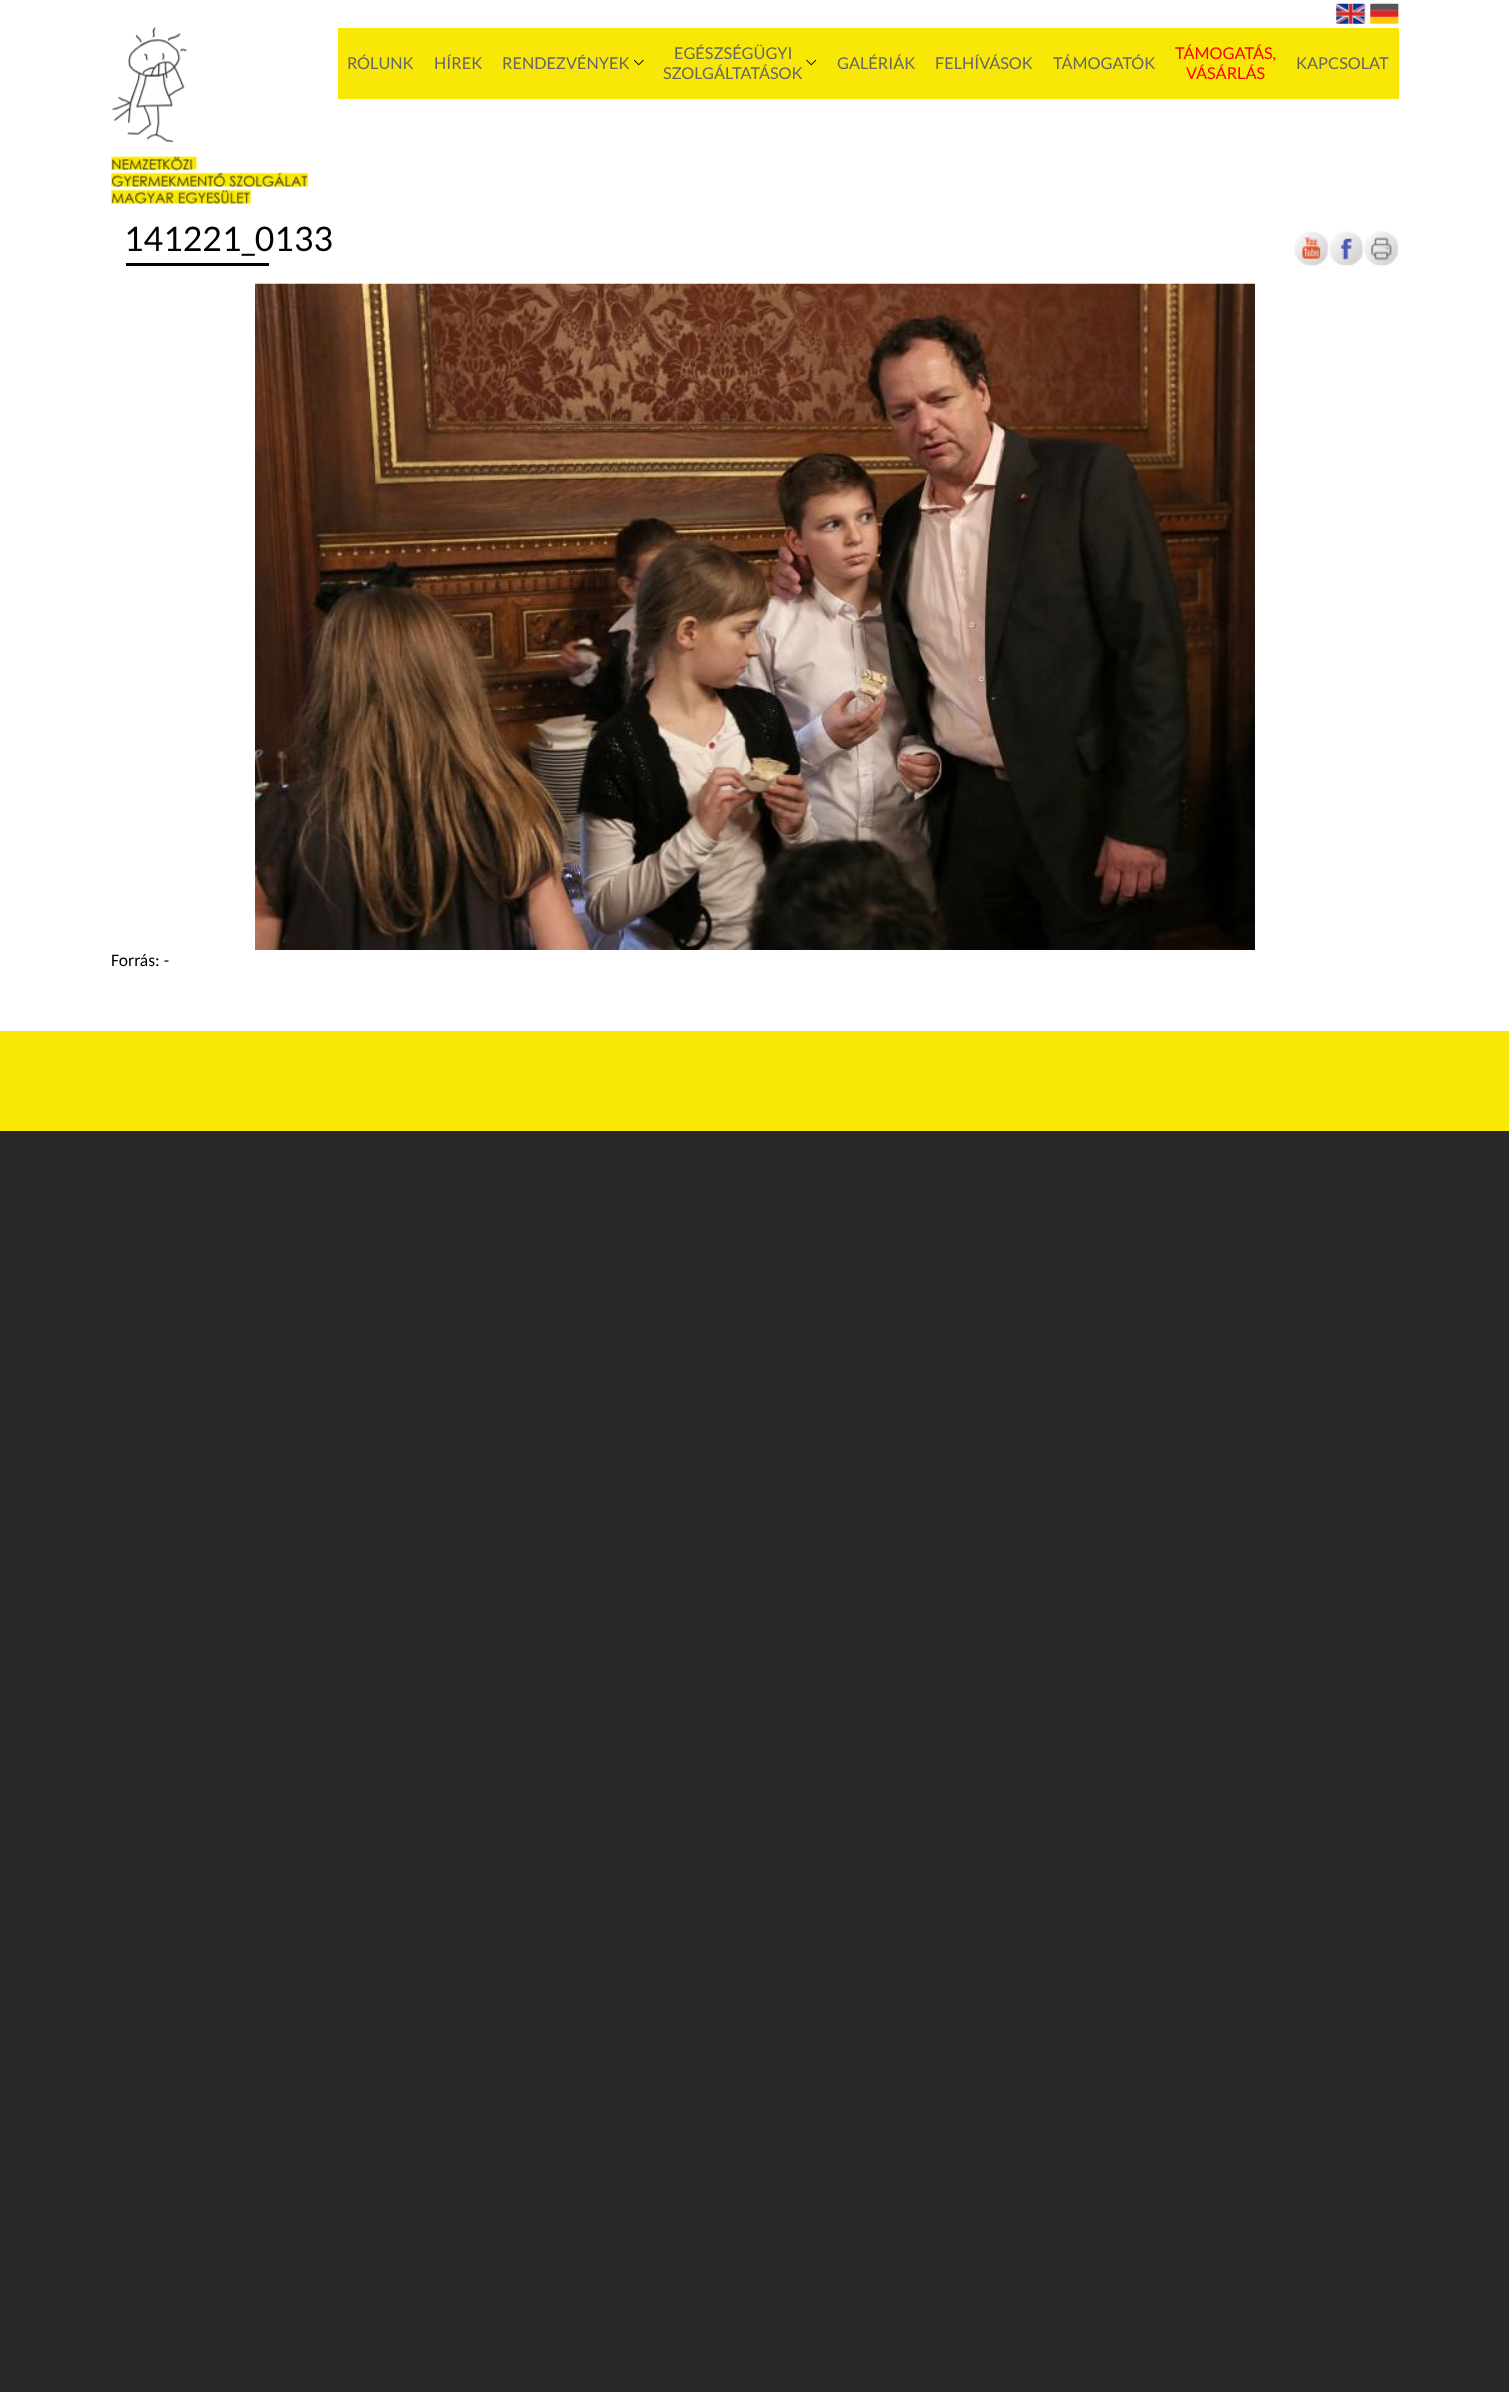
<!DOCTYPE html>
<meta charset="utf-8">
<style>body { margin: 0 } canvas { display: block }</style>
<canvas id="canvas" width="1509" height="2392"></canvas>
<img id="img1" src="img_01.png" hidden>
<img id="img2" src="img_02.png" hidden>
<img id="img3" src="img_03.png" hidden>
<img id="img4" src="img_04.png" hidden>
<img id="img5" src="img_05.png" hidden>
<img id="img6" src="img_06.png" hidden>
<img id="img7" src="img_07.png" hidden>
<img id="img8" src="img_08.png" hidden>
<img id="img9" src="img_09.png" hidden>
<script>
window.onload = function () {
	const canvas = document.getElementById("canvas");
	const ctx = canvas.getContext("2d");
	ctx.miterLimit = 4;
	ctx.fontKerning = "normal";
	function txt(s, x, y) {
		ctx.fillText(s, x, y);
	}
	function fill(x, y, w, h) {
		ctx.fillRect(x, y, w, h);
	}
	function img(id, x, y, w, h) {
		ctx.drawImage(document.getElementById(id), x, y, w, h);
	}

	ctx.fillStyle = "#282828";
	fill(0, 0, 1509, 2392);
	ctx.fillStyle = "#FFFFFF";
	fill(0, 0, 1509, 1031);
	img("img1", 1336, 3, 30, 21);
	img("img2", 1370, 3, 30, 21);
	img("img3", 111, 27, 198, 177);
	ctx.fillStyle = "#F9E805";
	fill(338, 28, 316, 71);
	img("img4", 634, 59, 10, 7);
	fill(654, 28, 745, 71);
	img("img5", 806, 59, 10, 7);
	ctx.fillStyle = "#000000";
	fill(126, 263, 143, 3);
	img("img6", 255, 283, 1000, 667);
	img("img7", 1294, 231, 35, 35);
	img("img8", 1329, 231, 35, 35);
	img("img9", 1364, 231, 35, 35);
	ctx.fillStyle = "#F9E805";
	fill(0, 1031, 1509, 100);
	ctx.font = "16.25px Lato";
	ctx.fillStyle = "#666666";
	txt("RÓLUNK", 347, 69);
	txt("HÍREK", 434, 69);
	txt("RENDEZVÉNYEK", 502, 69);
	txt("EGÉSZSÉGÜGYI", 674, 59);
	txt("SZOLGÁLTATÁSOK", 663, 79);
	txt("GALÉRIÁK", 837, 69);
	txt("FELHÍVÁSOK", 935, 69);
	txt("TÁMOGATÓK", 1053, 69);
	ctx.fillStyle = "#FF0000";
	txt("TÁMOGATÁS,", 1175, 59);
	txt("VÁSÁRLÁS", 1186, 79);
	ctx.fillStyle = "#666666";
	txt("KAPCSOLAT", 1296, 69);
	ctx.font = "33.75px Lato";
	ctx.fillStyle = "#000000";
	txt("141221_0133", 124, 251);
	ctx.font = "17.5px Carlito";
	txt("Forrás: -", 111, 966);
};
</script>
